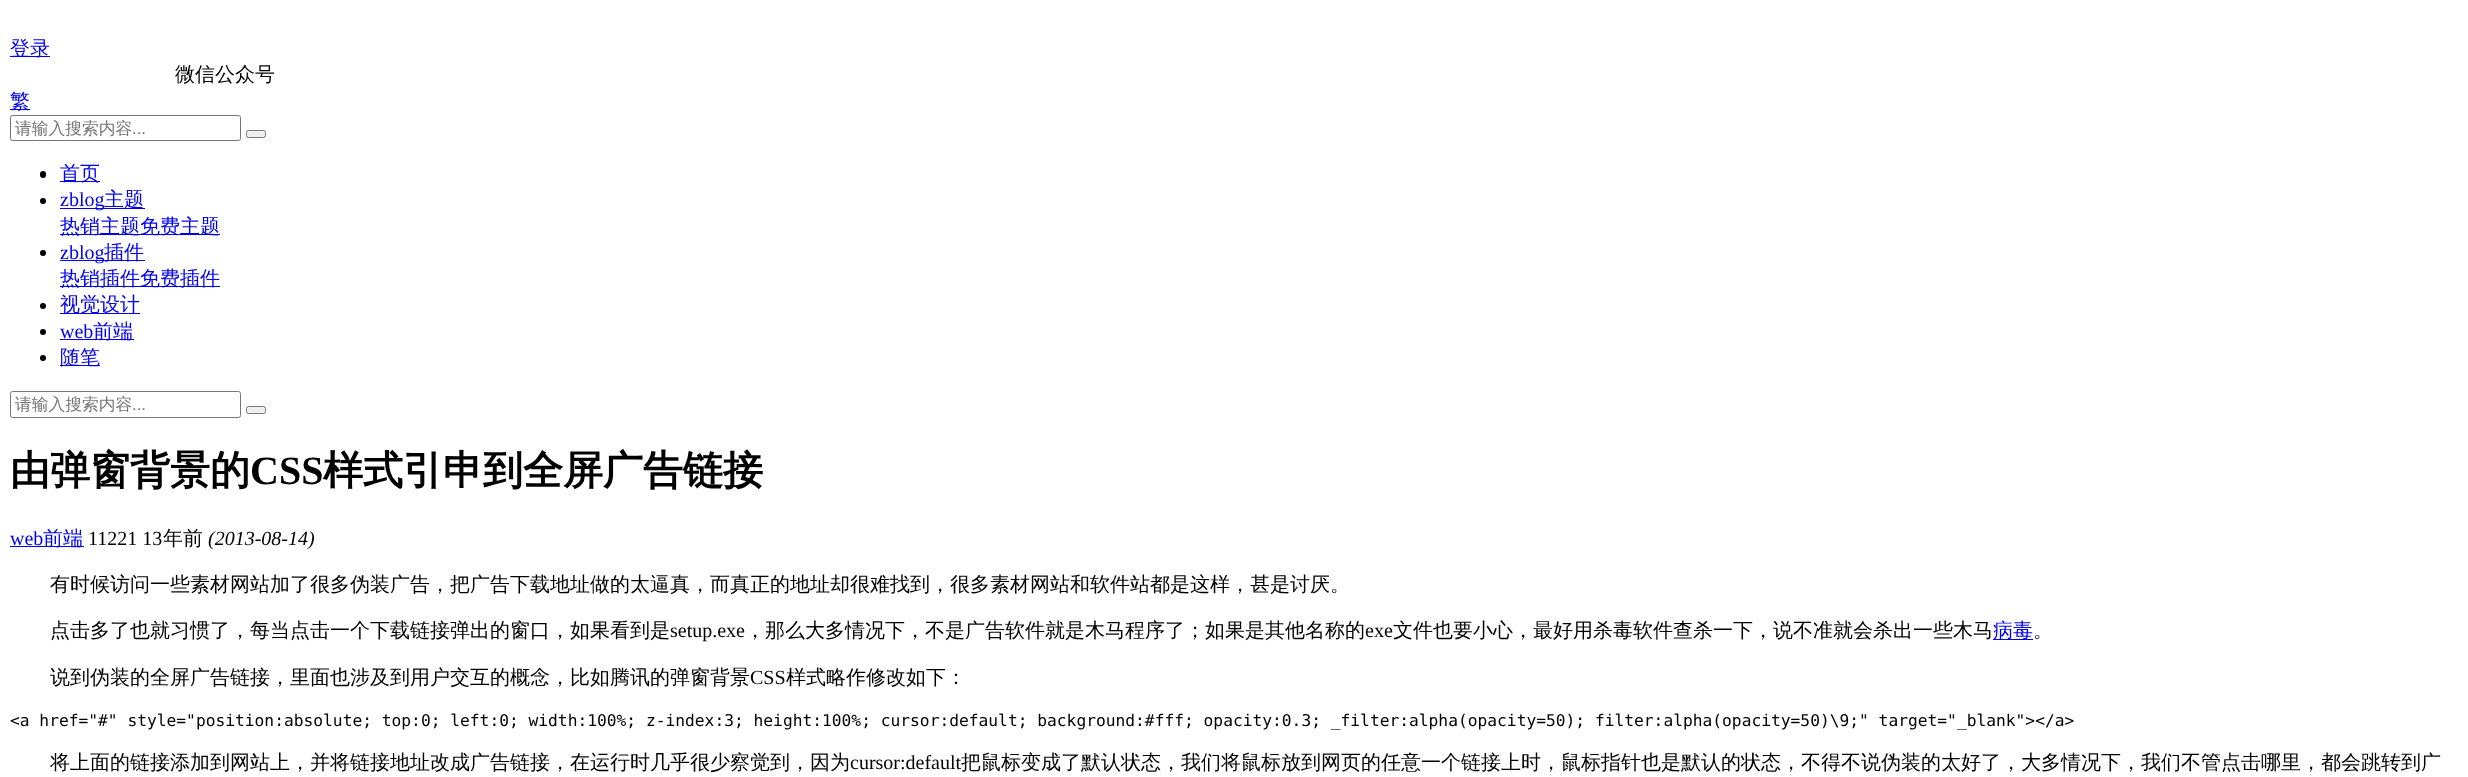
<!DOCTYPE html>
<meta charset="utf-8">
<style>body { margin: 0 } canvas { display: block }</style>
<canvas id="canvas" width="2468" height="777"></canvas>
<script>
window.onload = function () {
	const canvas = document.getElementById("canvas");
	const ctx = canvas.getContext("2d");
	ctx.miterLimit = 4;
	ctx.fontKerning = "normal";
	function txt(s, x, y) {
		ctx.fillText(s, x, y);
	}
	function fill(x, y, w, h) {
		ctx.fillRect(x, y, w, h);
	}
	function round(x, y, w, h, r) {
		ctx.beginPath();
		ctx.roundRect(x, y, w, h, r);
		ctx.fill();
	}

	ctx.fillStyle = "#FFFFFF";
	fill(0, 0, 2468, 777);
	ctx.fillStyle = "#0000EE";
	fill(10, 56, 40, 1);
	fill(10, 109, 20, 1);
	ctx.beginPath();
	ctx.roundRect(10.5, 115.5, 230, 25, 2);
	ctx.strokeStyle = "#767676";
	ctx.stroke();
	ctx.fillStyle = "#EFEFEF";
	ctx.beginPath();
	ctx.roundRect(246.5, 130.5, 19, 7, 2);
	ctx.fill();
	ctx.stroke();
	ctx.fillStyle = "#000000";
	round(40, 171, 6, 7, 3);
	ctx.fillStyle = "#0000EE";
	fill(60, 181, 40, 1);
	ctx.fillStyle = "#000000";
	ctx.beginPath();
	ctx.arc(43, 201, 3, 0, Math.PI * 2);
	ctx.fill();
	ctx.fillStyle = "#0000EE";
	fill(60, 208, 85, 1);
	fill(60, 234, 160, 1);
	ctx.fillStyle = "#000000";
	ctx.beginPath();
	ctx.arc(43, 253, 3, 0, Math.PI * 2);
	ctx.fill();
	ctx.fillStyle = "#0000EE";
	fill(60, 260, 85, 1);
	fill(60, 286, 160, 1);
	ctx.fillStyle = "#000000";
	ctx.beginPath();
	ctx.arc(43, 306, 3, 0, Math.PI * 2);
	ctx.fill();
	ctx.fillStyle = "#0000EE";
	fill(60, 313, 80, 1);
	ctx.fillStyle = "#000000";
	ctx.beginPath();
	ctx.arc(43, 332, 3, 0, Math.PI * 2);
	ctx.fill();
	ctx.fillStyle = "#0000EE";
	fill(60, 339, 74, 1);
	ctx.fillStyle = "#000000";
	ctx.beginPath();
	ctx.arc(43, 358, 3, 0, Math.PI * 2);
	ctx.fill();
	ctx.fillStyle = "#0000EE";
	fill(60, 365, 40, 1);
	ctx.beginPath();
	ctx.roundRect(10.5, 391.5, 230, 26, 2);
	ctx.stroke();
	ctx.fillStyle = "#EFEFEF";
	ctx.beginPath();
	ctx.roundRect(246.5, 406.5, 19, 7, 2);
	ctx.fill();
	ctx.stroke();
	ctx.fillStyle = "#0000EE";
	fill(10, 546, 74, 1);
	fill(1993, 639, 40, 1);
	ctx.font = "500 20px WenQuanYi Zen Hei";
	txt("登录", 10, 55);
	ctx.fillStyle = "#000000";
	txt("微信公众号", 175, 81);
	ctx.fillStyle = "#0000EE";
	txt("繁", 10, 108);
	ctx.font = "500 16.75px WenQuanYi Zen Hei";
	ctx.fillStyle = "#757575";
	txt("请输入搜索内容", 15, 134);
	ctx.font = "16.75px Liberation Sans";
	txt("...", 132, 134);
	ctx.font = "500 20px WenQuanYi Zen Hei";
	ctx.fillStyle = "#0000EE";
	txt("首页", 60, 180);
	ctx.font = "20px Liberation Serif";
	txt("zblog", 60, 206);
	ctx.font = "500 20px WenQuanYi Zen Hei";
	txt("主题", 104, 206);
	txt("热销主题免费主题", 60, 233);
	ctx.font = "20px Liberation Serif";
	txt("zblog", 60, 259);
	ctx.font = "500 20px WenQuanYi Zen Hei";
	txt("插件", 104, 259);
	txt("热销插件免费插件", 60, 285);
	txt("视觉设计", 60, 311);
	ctx.font = "20px Liberation Serif";
	txt("web", 60, 338);
	ctx.font = "500 20px WenQuanYi Zen Hei";
	txt("前端", 93, 338);
	txt("随笔", 60, 364);
	ctx.font = "500 16.75px WenQuanYi Zen Hei";
	ctx.fillStyle = "#757575";
	txt("请输入搜索内容", 15, 410);
	ctx.font = "16.75px Liberation Sans";
	txt("...", 132, 410);
	ctx.font = "bold 40px WenQuanYi Zen Hei";
	ctx.fillStyle = "#000000";
	txt("由弹窗背景的", 10, 484);
	ctx.font = "bold 40px Liberation Serif";
	txt("CSS", 250, 484);
	ctx.font = "bold 40px WenQuanYi Zen Hei";
	txt("样式引申到全屏广告链接", 323, 484);
	ctx.font = "20px Liberation Serif";
	ctx.fillStyle = "#0000EE";
	txt("web", 10, 545);
	ctx.font = "500 20px WenQuanYi Zen Hei";
	txt("前端", 43, 545);
	ctx.font = "20px Liberation Serif";
	ctx.fillStyle = "#000000";
	txt("11221 13", 88, 545);
	ctx.font = "500 20px WenQuanYi Zen Hei";
	txt("年前", 163, 545);
	ctx.font = "italic 20px Liberation Serif";
	txt("(2013-08-14)", 208, 545);
	ctx.font = "500 20px WenQuanYi Zen Hei";
	txt("有时候访问一些素材网站加了很多伪装广告，把广告下载地址做的太逼真，而真正的地址却很难找到，很多素材网站和软件站都是这样，甚是讨厌。", 50, 591);
	txt("点击多了也就习惯了，每当点击一个下载链接弹出的窗口，如果看到是", 50, 637);
	ctx.font = "20px Liberation Serif";
	txt("setup.exe", 670, 637);
	ctx.font = "500 20px WenQuanYi Zen Hei";
	txt("，那么大多情况下，不是广告软件就是木马程序了；如果是其他名称的", 745, 637);
	ctx.font = "20px Liberation Serif";
	txt("exe", 1365, 637);
	ctx.font = "500 20px WenQuanYi Zen Hei";
	txt("文件也要小心，最好用杀毒软件查杀一下，说不准就会杀出一些木马", 1393, 637);
	ctx.fillStyle = "#0000EE";
	txt("病毒", 1993, 637);
	ctx.fillStyle = "#000000";
	txt("。", 2033, 637);
	txt("说到伪装的全屏广告链接，里面也涉及到用户交互的概念，比如腾讯的弹窗背景", 50, 684);
	ctx.font = "20px Liberation Serif";
	txt("CSS", 750, 684);
	ctx.font = "500 20px WenQuanYi Zen Hei";
	txt("样式略作修改如下：", 786, 684);
	ctx.font = "16.25px DejaVu Sans Mono";
	txt("<a href=\"#\" style=\"position:absolute; top:0; left:0; width:100%; z-index:3; height:100%; cursor:default; background:#fff; opacity:0.3; _filter:alpha(opacity=50); filter:alpha(opacity=50)\\9;\" target=\"_blank\"><\/a>", 10, 726);
	ctx.font = "500 20px WenQuanYi Zen Hei";
	txt("将上面的链接添加到网站上，并将链接地址改成广告链接，在运行时几乎很少察觉到，因为", 50, 769);
	ctx.font = "20px Liberation Serif";
	txt("cursor:default", 850, 769);
	ctx.font = "500 20px WenQuanYi Zen Hei";
	txt("把鼠标变成了默认状态，我们将鼠标放到网页的任意一个链接上时，鼠标指针也是默认的状态，不得不说伪装的太好了，大多情况下，我们不管点击哪里，都会跳转到广", 961, 769);
};
</script>
